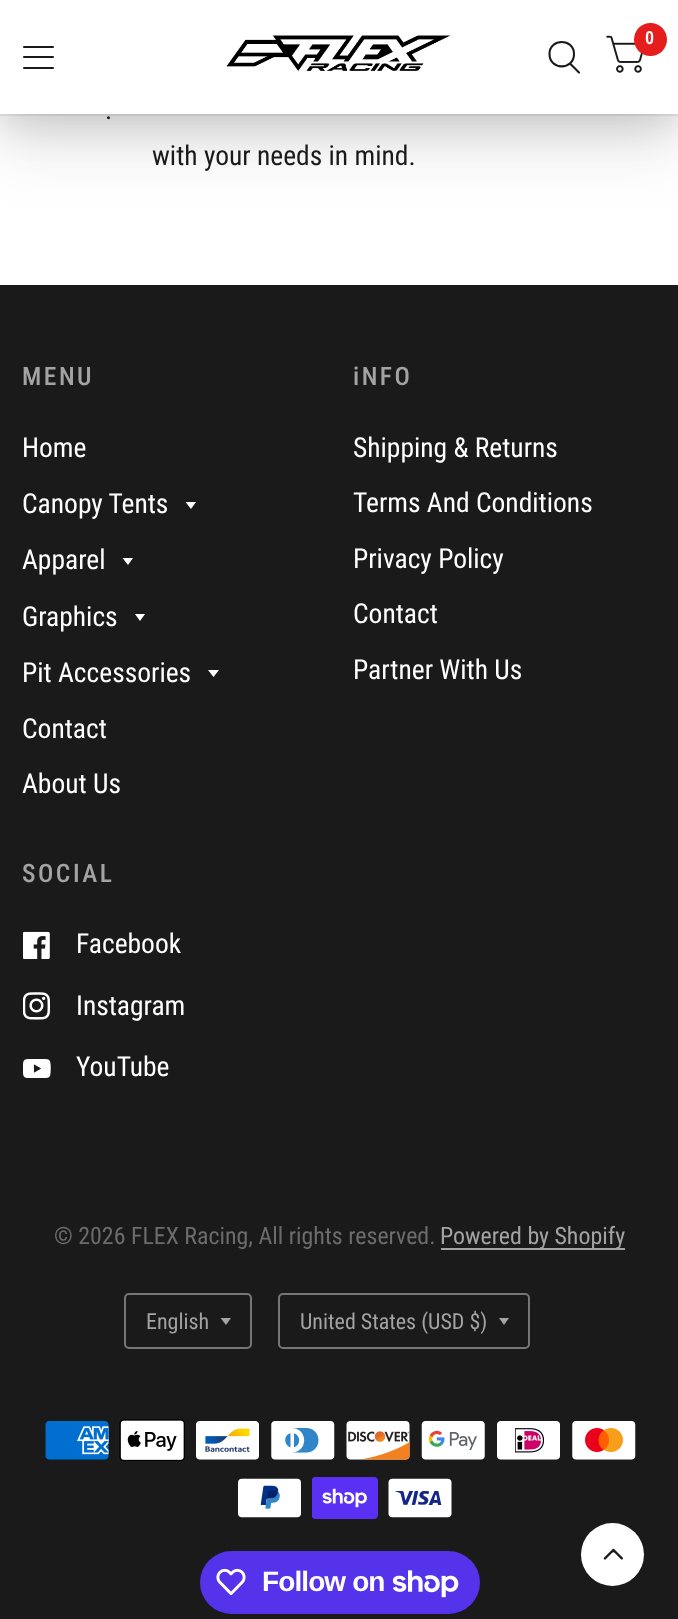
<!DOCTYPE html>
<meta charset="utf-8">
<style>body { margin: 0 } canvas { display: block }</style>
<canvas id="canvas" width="678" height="1619"></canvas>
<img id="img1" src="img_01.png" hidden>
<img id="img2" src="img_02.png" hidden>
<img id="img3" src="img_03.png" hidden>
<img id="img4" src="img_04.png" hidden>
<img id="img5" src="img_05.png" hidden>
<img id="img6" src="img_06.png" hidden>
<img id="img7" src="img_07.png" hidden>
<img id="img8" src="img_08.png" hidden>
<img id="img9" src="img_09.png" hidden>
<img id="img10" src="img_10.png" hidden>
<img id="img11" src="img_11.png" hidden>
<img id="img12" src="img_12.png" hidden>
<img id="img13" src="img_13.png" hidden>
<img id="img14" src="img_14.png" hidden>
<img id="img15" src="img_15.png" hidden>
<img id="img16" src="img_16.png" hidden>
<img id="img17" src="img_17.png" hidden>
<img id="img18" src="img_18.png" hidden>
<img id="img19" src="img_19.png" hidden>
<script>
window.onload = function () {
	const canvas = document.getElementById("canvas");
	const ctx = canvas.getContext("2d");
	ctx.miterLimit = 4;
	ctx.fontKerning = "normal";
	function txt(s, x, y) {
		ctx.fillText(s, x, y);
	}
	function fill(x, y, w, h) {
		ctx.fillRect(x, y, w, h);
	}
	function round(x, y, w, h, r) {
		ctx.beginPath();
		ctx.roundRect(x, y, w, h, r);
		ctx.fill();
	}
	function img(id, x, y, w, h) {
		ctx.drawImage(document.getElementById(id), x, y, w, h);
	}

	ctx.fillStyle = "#FFFFFF";
	fill(0, 0, 678, 1619);
	ctx.fillStyle = "#EEEEEE";
	fill(0, 114, 678, 2);
	ctx.save();
	ctx.beginPath();
	ctx.moveTo(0, 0);
	ctx.lineTo(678, 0);
	ctx.lineTo(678, 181);
	ctx.lineTo(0, 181);
	ctx.closePath();
	ctx.moveTo(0, 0);
	ctx.lineTo(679, 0);
	ctx.lineTo(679, 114);
	ctx.lineTo(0, 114);
	ctx.closePath();
	ctx.clip("evenodd");
	ctx.fillStyle = "rgba(0, 0, 0, 0.15)";
	ctx.filter = "blur(19px)";
	ctx.beginPath();
	ctx.rect(0, 9, 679, 114);
	ctx.fill();
	ctx.filter = "none";
	ctx.restore();
	ctx.save();
	ctx.beginPath();
	ctx.moveTo(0, 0);
	ctx.lineTo(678, 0);
	ctx.lineTo(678, 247);
	ctx.lineTo(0, 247);
	ctx.closePath();
	ctx.moveTo(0, 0);
	ctx.lineTo(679, 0);
	ctx.lineTo(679, 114);
	ctx.lineTo(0, 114);
	ctx.closePath();
	ctx.clip("evenodd");
	ctx.fillStyle = "rgba(0, 0, 0, 0.1)";
	ctx.filter = "blur(33px)";
	ctx.beginPath();
	ctx.rect(0, 33, 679, 114);
	ctx.fill();
	ctx.filter = "none";
	ctx.restore();
	ctx.fillStyle = "#1A1A1A";
	round(23, 46, 31, 2, 1);
	round(23, 56, 31, 2, 1);
	round(23, 67, 31, 2, 1);
	img("img1", 226, 35, 225, 36);
	img("img2", 606, 35, 37, 38);
	ctx.fillStyle = "#E51D1D";
	ctx.beginPath();
	ctx.arc(650.5, 39.5, 16.5, 0, Math.PI * 2);
	ctx.fill();
	ctx.beginPath();
	ctx.moveTo(570.5, 64);
	ctx.lineTo(579, 72.5);
	ctx.moveTo(574, 54);
	ctx.bezierCurveTo(574, 70.5, 549.5, 70.5, 549.5, 54);
	ctx.bezierCurveTo(549.5, 38, 574, 38, 574, 54);
	ctx.closePath();
	ctx.strokeStyle = "#1A1A1A";
	ctx.lineWidth = 2.1;
	ctx.lineCap = "round";
	ctx.lineJoin = "round";
	ctx.stroke();
	ctx.fillStyle = "#1A1A1A";
	fill(0, 285, 678, 1334);
	ctx.fillStyle = "#FFFFFF";
	ctx.beginPath();
	ctx.moveTo(185.5, 502);
	ctx.lineTo(196, 502);
	ctx.lineTo(191, 509);
	ctx.closePath();
	ctx.fill();
	ctx.beginPath();
	ctx.moveTo(122.5, 558);
	ctx.lineTo(133, 558);
	ctx.lineTo(128, 565);
	ctx.closePath();
	ctx.moveTo(135, 614);
	ctx.lineTo(145, 614);
	ctx.lineTo(140, 621);
	ctx.closePath();
	ctx.fill();
	ctx.beginPath();
	ctx.moveTo(208, 670);
	ctx.lineTo(219, 670);
	ctx.lineTo(213.5, 677);
	ctx.closePath();
	ctx.fill();
	img("img3", 23, 931, 27, 28);
	img("img4", 23, 992, 28, 28);
	img("img5", 23, 1059, 28, 19);
	ctx.fillStyle = "#A3A3A3";
	fill(441, 1248, 184, 2);
	ctx.beginPath();
	ctx.roundRect(125, 1294, 126, 54, 4);
	ctx.strokeStyle = "#767676";
	ctx.lineWidth = 2;
	ctx.lineJoin = "miter";
	ctx.stroke();
	ctx.beginPath();
	ctx.moveTo(220.5, 1318);
	ctx.lineTo(231, 1318);
	ctx.lineTo(226, 1325);
	ctx.closePath();
	ctx.fill();
	ctx.beginPath();
	ctx.roundRect(279, 1294, 250, 54, 4);
	ctx.stroke();
	ctx.beginPath();
	ctx.moveTo(499, 1318);
	ctx.lineTo(509, 1318);
	ctx.lineTo(504, 1325);
	ctx.closePath();
	ctx.fill();
	img("img6", 45, 1421, 64, 39);
	img("img7", 119, 1419, 66, 42);
	img("img8", 196, 1421, 63, 39);
	img("img9", 271, 1421, 64, 39);
	img("img10", 346, 1421, 64, 39);
	img("img11", 421, 1421, 64, 39);
	img("img12", 497, 1421, 63, 39);
	img("img13", 572, 1421, 64, 39);
	img("img14", 238, 1478, 63, 40);
	img("img15", 312, 1477, 66, 42);
	img("img16", 388, 1478, 64, 40);
	ctx.fillStyle = "#5433EB";
	round(200, 1551, 280, 63, 31.5);
	img("img17", 216, 1568, 30, 28);
	img("img18", 392, 1570, 67, 28);
	ctx.fillStyle = "#FFFFFF";
	ctx.beginPath();
	ctx.arc(612.5, 1554.5, 31.5, 0, Math.PI * 2);
	ctx.fill();
	img("img19", 603, 1548, 20, 12);
	ctx.font = "600 18px Roboto Condensed";
	txt("0", 645, 44);
	ctx.font = "27.5px Roboto Condensed";
	ctx.fillStyle = "#1A1A1A";
	txt(".", 105, 119);
	txt("with your needs in mind.", 152, 165);
	ctx.letterSpacing = "2.5px";
	ctx.font = "500 25.5px Roboto Condensed";
	ctx.fillStyle = "#A3A3A3";
	txt("MENU", 22, 385);
	ctx.letterSpacing = "0px";
	ctx.font = "27.5px Roboto Condensed";
	ctx.fillStyle = "#FFFFFF";
	txt("Home", 22, 457);
	txt("Canopy Tents", 22, 513);
	txt("Apparel", 22, 569);
	txt("Graphics", 22, 626);
	txt("Pit Accessories", 22, 682);
	txt("Contact", 22, 738);
	txt("About Us", 22, 793);
	ctx.letterSpacing = "2.5px";
	ctx.font = "500 25.5px Roboto Condensed";
	ctx.fillStyle = "#A3A3A3";
	txt("iNFO", 353, 385);
	ctx.letterSpacing = "0px";
	ctx.font = "27.5px Roboto Condensed";
	ctx.fillStyle = "#FFFFFF";
	txt("Shipping & Returns", 353, 457);
	txt("Terms And Conditions", 353, 512);
	txt("Privacy Policy", 353, 568);
	txt("Contact", 353, 623);
	txt("Partner With Us", 353, 679);
	ctx.letterSpacing = "2.5px";
	ctx.font = "500 25.5px Roboto Condensed";
	ctx.fillStyle = "#A3A3A3";
	txt("SOCIAL", 22, 882);
	ctx.letterSpacing = "0px";
	ctx.font = "27.5px Roboto Condensed";
	ctx.fillStyle = "#FFFFFF";
	txt("Facebook", 76, 953);
	txt("Instagram", 76, 1015);
	txt("YouTube", 76, 1076);
	ctx.font = "23.9px Roboto Condensed";
	ctx.fillStyle = "#6C6C6C";
	txt("© 2026 FLEX Racing, All rights reserved.", 54, 1244);
	ctx.fillStyle = "#A3A3A3";
	txt("Powered by Shopify", 440, 1244);
	ctx.font = "22px Roboto Condensed";
	txt("English", 146, 1329);
	txt("United States (USD $)", 300, 1329);
	ctx.letterSpacing = "-0.9px";
	ctx.font = "bold 28px Liberation Sans";
	ctx.fillStyle = "#FFFFFF";
	txt("Follow on", 262, 1591);
};
</script>
